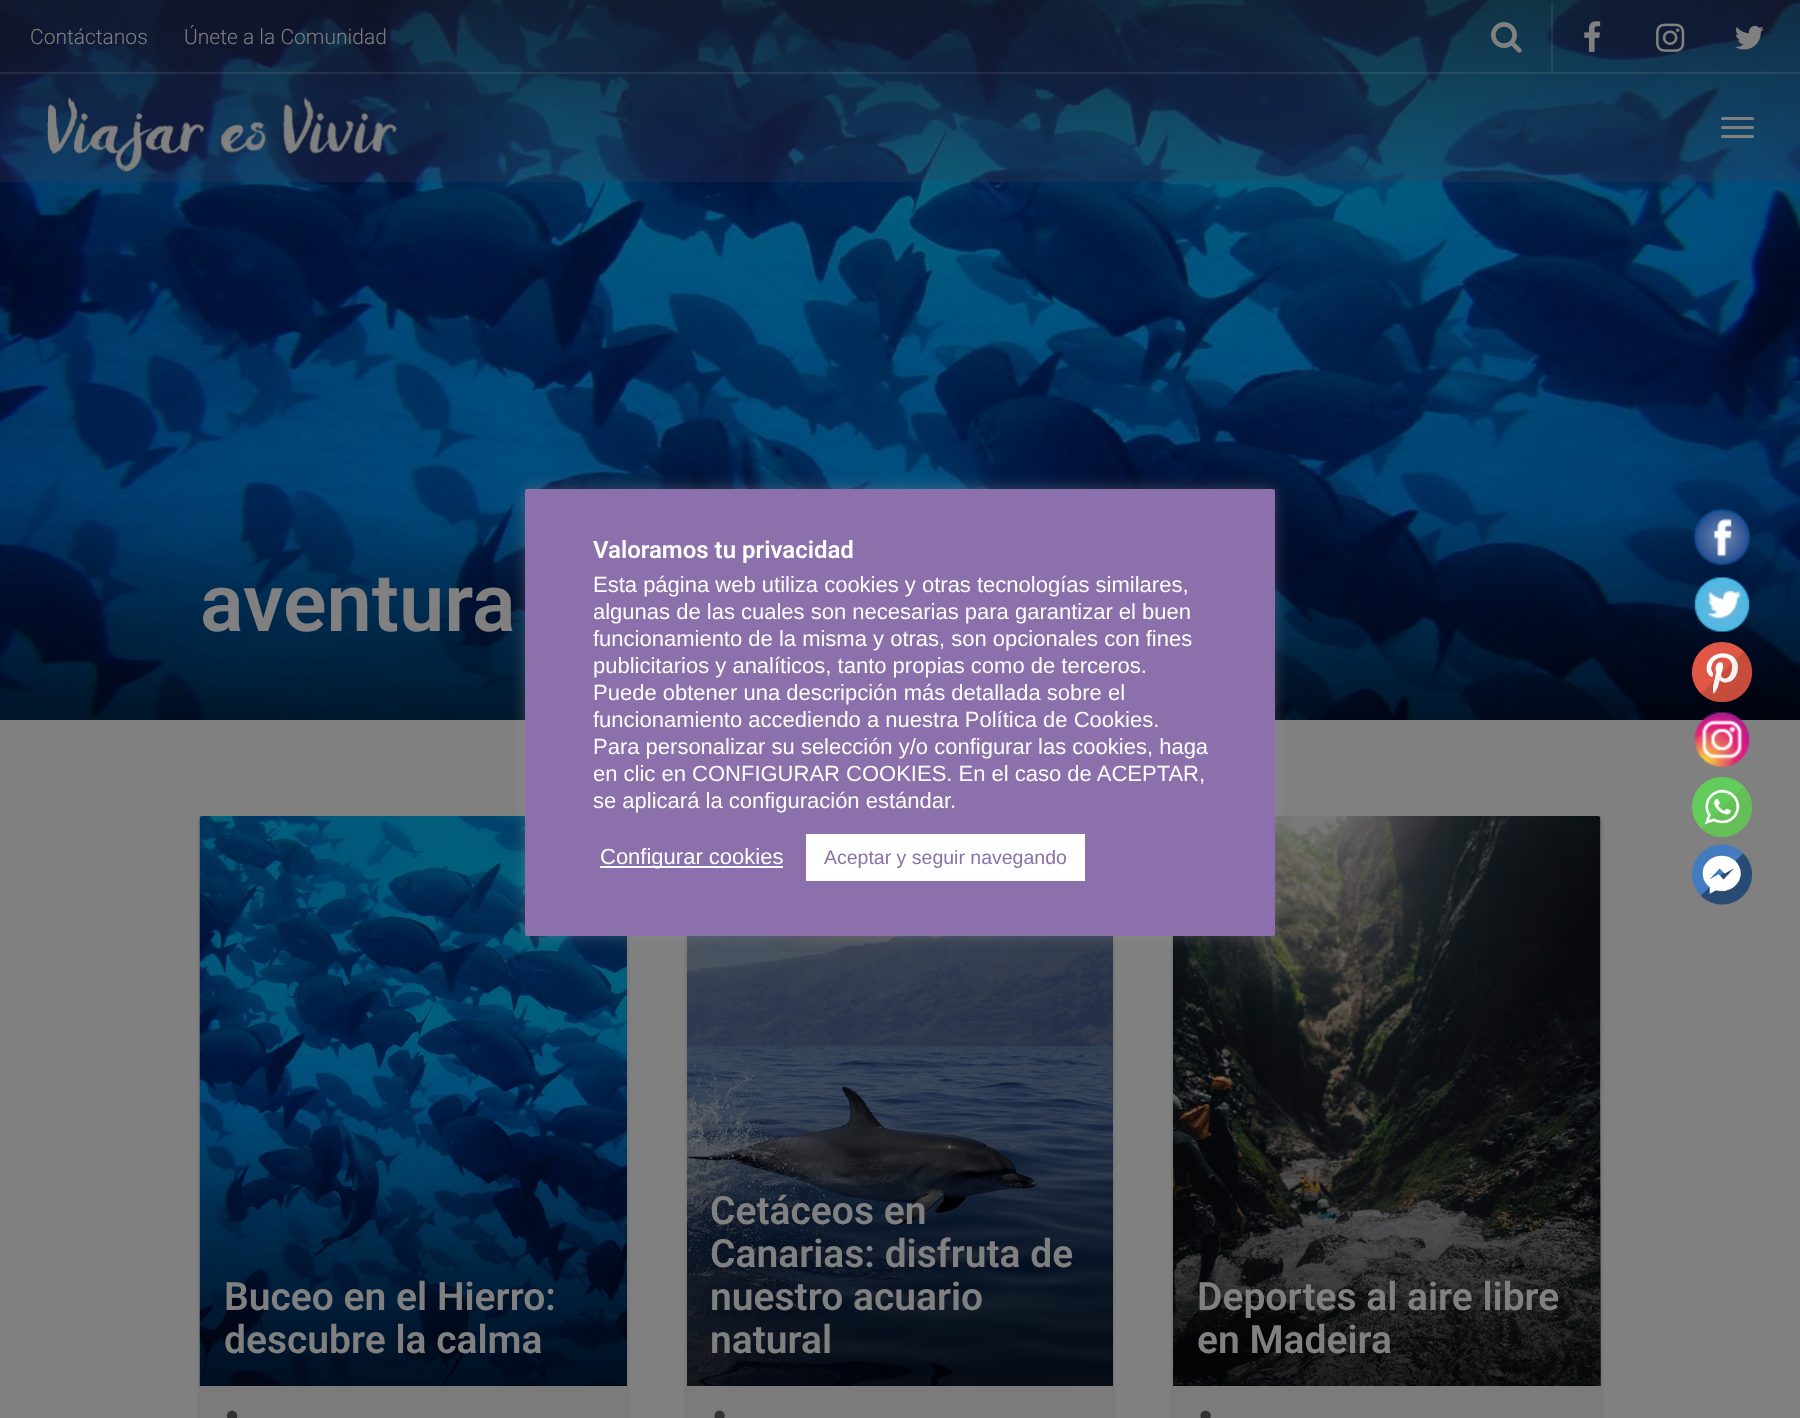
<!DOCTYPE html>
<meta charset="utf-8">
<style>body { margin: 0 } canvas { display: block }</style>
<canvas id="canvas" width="1800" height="1418"></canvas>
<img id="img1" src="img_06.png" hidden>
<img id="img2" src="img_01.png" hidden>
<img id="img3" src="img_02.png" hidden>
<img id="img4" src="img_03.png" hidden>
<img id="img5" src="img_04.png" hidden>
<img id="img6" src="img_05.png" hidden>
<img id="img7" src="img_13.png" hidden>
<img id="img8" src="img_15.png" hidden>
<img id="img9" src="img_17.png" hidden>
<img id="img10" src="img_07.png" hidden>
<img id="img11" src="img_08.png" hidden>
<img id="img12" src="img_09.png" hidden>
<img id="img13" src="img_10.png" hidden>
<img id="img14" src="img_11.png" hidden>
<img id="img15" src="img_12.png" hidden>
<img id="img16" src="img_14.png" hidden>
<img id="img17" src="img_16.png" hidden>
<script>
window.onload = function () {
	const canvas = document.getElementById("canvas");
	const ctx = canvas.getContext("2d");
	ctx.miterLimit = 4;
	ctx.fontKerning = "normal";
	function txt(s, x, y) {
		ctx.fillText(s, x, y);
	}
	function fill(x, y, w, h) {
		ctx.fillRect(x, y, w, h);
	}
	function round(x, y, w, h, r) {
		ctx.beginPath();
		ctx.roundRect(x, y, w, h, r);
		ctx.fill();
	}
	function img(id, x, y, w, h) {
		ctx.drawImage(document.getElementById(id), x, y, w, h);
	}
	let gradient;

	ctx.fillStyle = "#808080";
	fill(0, 0, 1800, 1418);
	img("img1", 0, 0, 1800, 720);
	ctx.fillStyle = "rgba(65, 56, 85, 0.25)";
	fill(0, 0, 1800, 182);
	ctx.fillStyle = "rgba(128, 128, 128, 0.2)";
	fill(0, 72, 1800, 2);
	fill(1551, 2, 2, 69);
	img("img2", 1491, 22, 31, 31);
	img("img3", 1584, 21, 17, 31);
	img("img4", 1656, 23, 29, 29);
	img("img5", 1735, 25, 29, 25);
	img("img6", 47, 97, 350, 75);
	ctx.fillStyle = "#808080";
	round(1721, 117, 33, 3, 1.5);
	round(1721, 126, 33, 3, 1.5);
	round(1721, 135, 33, 3, 1.5);
	ctx.fillStyle = "rgba(0, 0, 0, 0.15)";
	ctx.filter = "blur(2px)";
	ctx.beginPath();
	ctx.roundRect(200, 818, 427, 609, 3);
	ctx.fill();
	ctx.filter = "none";
	img("img7", 199, 816, 428, 570);
	gradient = ctx.createLinearGradient(413, 816, 413, 1386);
	gradient.addColorStop(0.5, "rgba(0, 0, 0, 0.03)");
	gradient.addColorStop(1, "rgba(0, 0, 0, 0.66)");
	ctx.fillStyle = gradient;
	fill(200, 816, 427, 570);
	ctx.fillStyle = "rgba(0, 0, 0, 0.15)";
	ctx.filter = "blur(2px)";
	ctx.beginPath();
	ctx.roundRect(687, 818, 426, 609, 3);
	ctx.fill();
	ctx.filter = "none";
	img("img8", 687, 936, 426, 450);
	gradient = ctx.createLinearGradient(900, 816, 900, 1386);
	gradient.addColorStop(0.5, "rgba(0, 0, 0, 0.03)");
	gradient.addColorStop(1, "rgba(0, 0, 0, 0.66)");
	ctx.fillStyle = gradient;
	fill(687, 936, 426, 450);
	ctx.fillStyle = "rgba(0, 0, 0, 0.15)";
	ctx.filter = "blur(2px)";
	ctx.beginPath();
	ctx.roundRect(1173, 818, 428, 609, 3);
	ctx.fill();
	ctx.filter = "none";
	ctx.fillStyle = "#808080";
	round(1173, 816, 428, 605, 3);
	img("img9", 1173, 816, 428, 570);
	gradient = ctx.createLinearGradient(1387, 816, 1387, 1386);
	gradient.addColorStop(0.5, "rgba(0, 0, 0, 0.03)");
	gradient.addColorStop(1, "rgba(0, 0, 0, 0.66)");
	ctx.fillStyle = gradient;
	fill(1173, 816, 428, 570);
	ctx.fillStyle = "rgba(172, 171, 171, 0.3)";
	ctx.filter = "blur(7.5px)";
	ctx.beginPath();
	ctx.roundRect(525, 488, 750, 447, 2);
	ctx.fill();
	ctx.filter = "none";
	ctx.fillStyle = "#8B70AB";
	round(525, 489, 750, 447, 2);
	ctx.fillStyle = "#FFFFFF";
	fill(600, 866, 183, 2);
	fill(806, 834, 279, 47);
	img("img10", 1693, 508, 58, 58);
	img("img11", 1694, 577, 56, 55);
	img("img12", 1692, 642, 60, 60);
	img("img13", 1694, 712, 56, 55);
	img("img14", 1692, 777, 60, 60);
	img("img15", 1692, 844, 60, 61);
	ctx.fillStyle = "#7B7B7B";
	fill(200, 1386, 427, 32);
	img("img16", 226, 1410, 12, 8);
	fill(687, 1386, 426, 32);
	img("img17", 714, 1410, 11, 8);
	fill(1173, 1386, 428, 32);
	img("img17", 1200, 1410, 11, 8);
	ctx.font = "300 21px Roboto";
	ctx.fillStyle = "#808080";
	txt("Contáctanos", 30, 44);
	txt("Únete a la Comunidad", 184, 44);
	ctx.font = "600 81px Roboto";
	txt("aventura", 200, 631);
	ctx.font = "600 24px Roboto";
	ctx.fillStyle = "#FFFFFF";
	txt("Valoramos tu privacidad", 593, 558);
	ctx.font = "22px Liberation Sans";
	txt("Esta página web utiliza cookies y otras tecnologías similares,", 593, 592);
	txt("algunas de las cuales son necesarias para garantizar el buen", 593, 619);
	txt("funcionamiento de la misma y otras, son opcionales con fines", 593, 646);
	txt("publicitarios y analíticos, tanto propias como de terceros.", 593, 673);
	txt("Puede obtener una descripción más detallada sobre el", 593, 700);
	txt("funcionamiento accediendo a nuestra Política de Cookies.", 593, 727);
	txt("Para personalizar su selección y/o configurar las cookies, haga", 593, 754);
	txt("en clic en CONFIGURAR COOKIES. En el caso de ACEPTAR,", 593, 781);
	txt("se aplicará la configuración estándar.", 593, 808);
	txt("Configurar cookies", 600, 864);
	ctx.font = "19.5px Liberation Sans";
	ctx.fillStyle = "#8B70AB";
	txt("Aceptar y seguir navegando", 824, 864);
	ctx.font = "600 39px Roboto";
	ctx.fillStyle = "#808080";
	txt("Buceo en el Hierro:", 224, 1310);
	txt("descubre la calma", 224, 1353);
	txt("Cetáceos en", 710, 1224);
	txt("Canarias: disfruta de", 710, 1267);
	txt("nuestro acuario", 710, 1310);
	txt("natural", 710, 1353);
	txt("Deportes al aire libre", 1197, 1310);
	txt("en Madeira", 1197, 1353);
};
</script>
